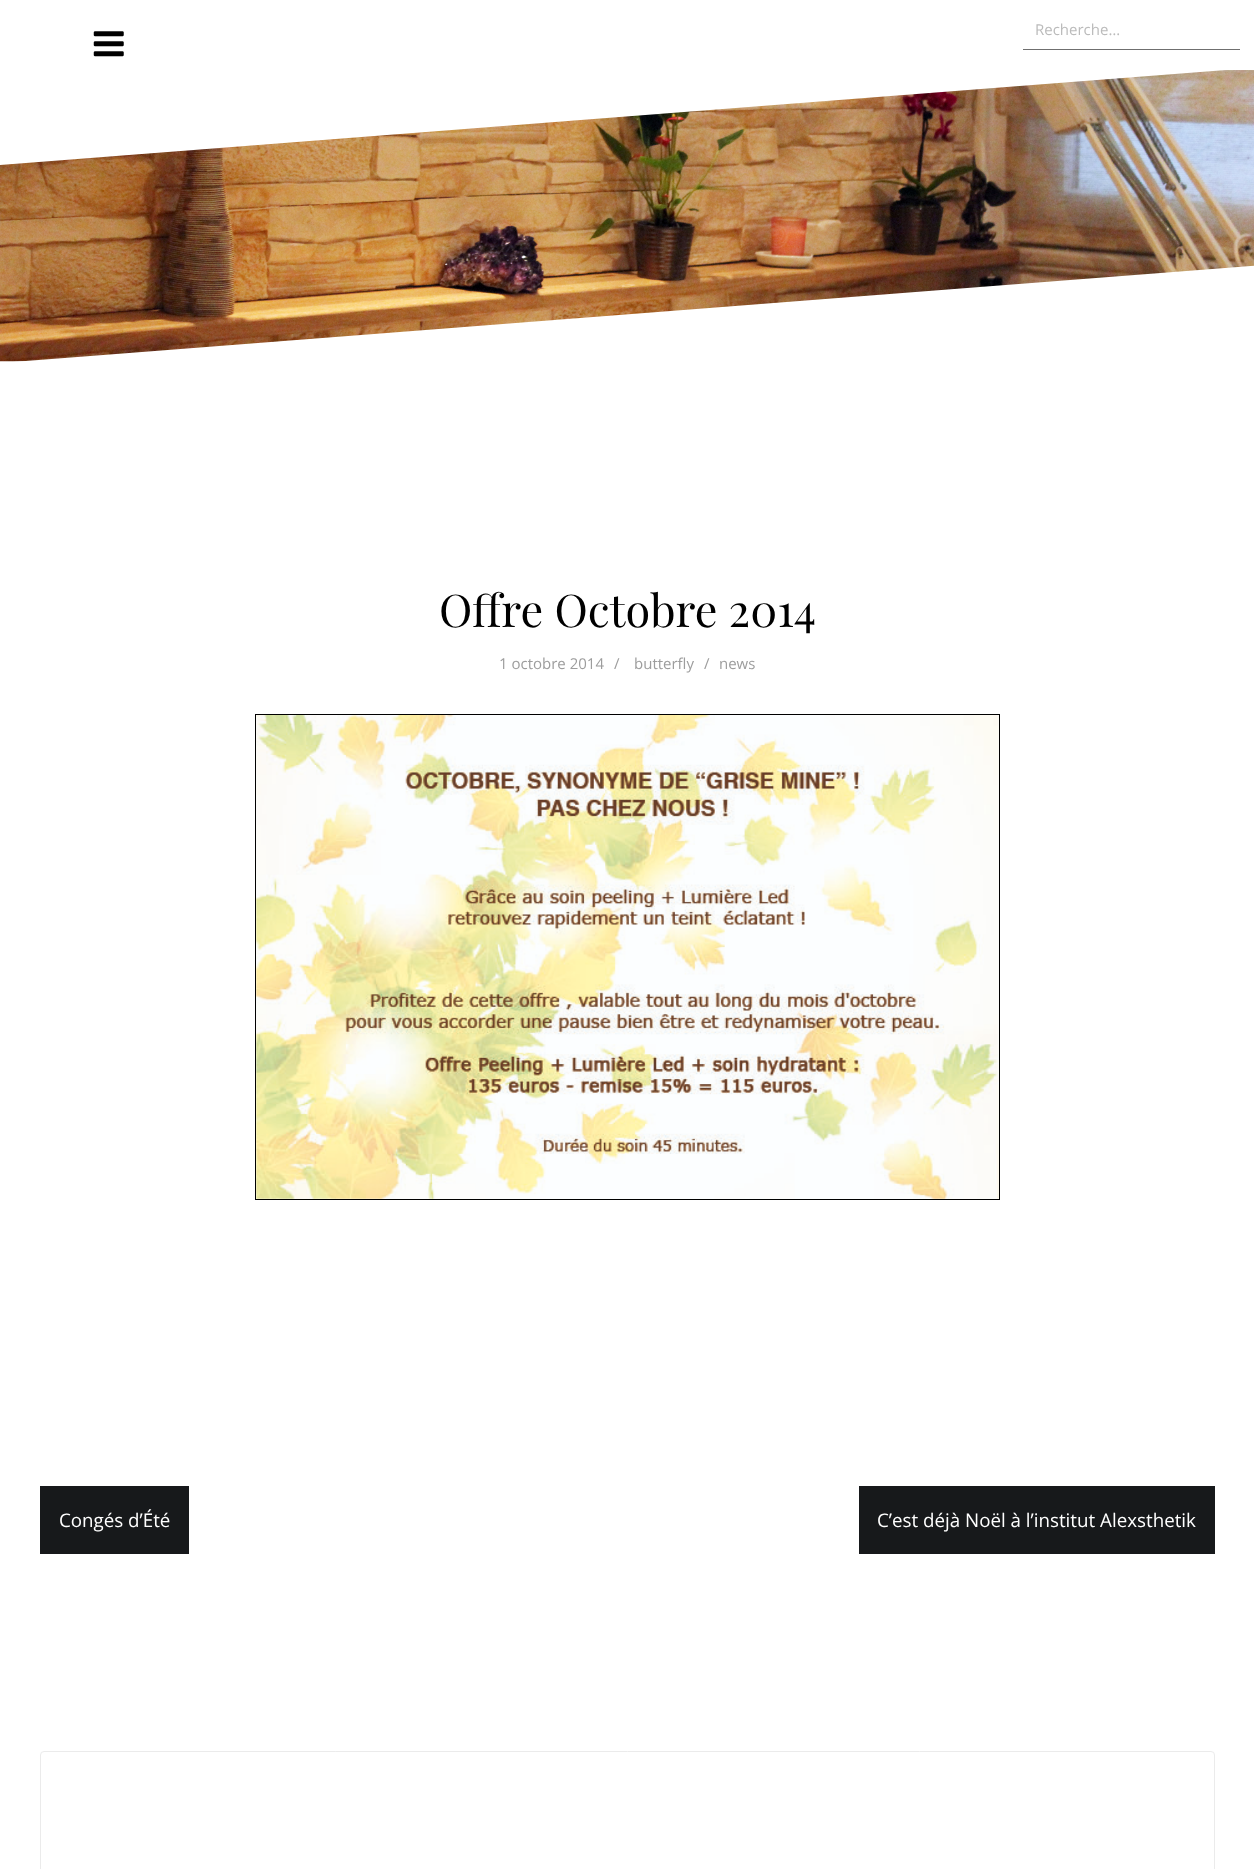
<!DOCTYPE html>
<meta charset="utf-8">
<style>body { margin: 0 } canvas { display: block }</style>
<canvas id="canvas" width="1254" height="1869"></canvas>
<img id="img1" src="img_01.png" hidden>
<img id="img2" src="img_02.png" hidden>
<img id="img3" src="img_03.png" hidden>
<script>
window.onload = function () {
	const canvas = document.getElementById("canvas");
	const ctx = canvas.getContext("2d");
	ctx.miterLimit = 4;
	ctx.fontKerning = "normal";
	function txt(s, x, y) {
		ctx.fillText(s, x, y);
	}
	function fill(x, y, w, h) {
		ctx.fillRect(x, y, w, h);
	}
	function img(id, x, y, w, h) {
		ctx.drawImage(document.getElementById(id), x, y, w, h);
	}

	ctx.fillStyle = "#FFFFFF";
	fill(0, 0, 1254, 1869);
	ctx.fillStyle = "#6F6F6F";
	fill(1023, 49, 217, 1);
	img("img1", 93, 31, 31, 26);
	img("img2", 0, 70, 1254, 292);
	ctx.fillStyle = "#FFFFFF";
	ctx.beginPath();
	ctx.moveTo(0, 165);
	ctx.lineTo(0, 69);
	ctx.lineTo(1239, 69);
	ctx.fill();
	ctx.beginPath();
	ctx.moveTo(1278, 264);
	ctx.lineTo(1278, 363);
	ctx.lineTo(0, 363);
	ctx.fill();
	ctx.strokeStyle = "#000000";
	ctx.strokeRect(255.5, 714.5, 744, 485);
	img("img3", 256, 715, 743, 484);
	ctx.fillStyle = "#17191B";
	fill(40, 1486, 149, 68);
	fill(859, 1486, 356, 68);
	ctx.beginPath();
	ctx.roundRect(40.5, 1751.5, 1174, 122, 3.5);
	ctx.strokeStyle = "#EBEBEB";
	ctx.stroke();
	ctx.font = "15px Open Sans";
	ctx.fillStyle = "#BBBBBB";
	txt("Recherche…", 1035, 35);
	ctx.font = "45px Playfair Display";
	ctx.fillStyle = "#000000";
	txt("Offre Octobre 2014", 439, 627);
	ctx.font = "15px Open Sans";
	ctx.fillStyle = "#9D9D9D";
	txt("1 octobre 2014", 499, 669);
	txt("/", 614, 669);
	txt("butterfly", 634, 669);
	txt("/", 704, 669);
	txt("news", 719, 669);
	ctx.font = "18.75px Open Sans";
	ctx.fillStyle = "#FFFFFF";
	txt("Congés d’Été", 59, 1527);
	txt("C’est déjà Noël à l’institut Alexsthetik", 877, 1527);
};
</script>
